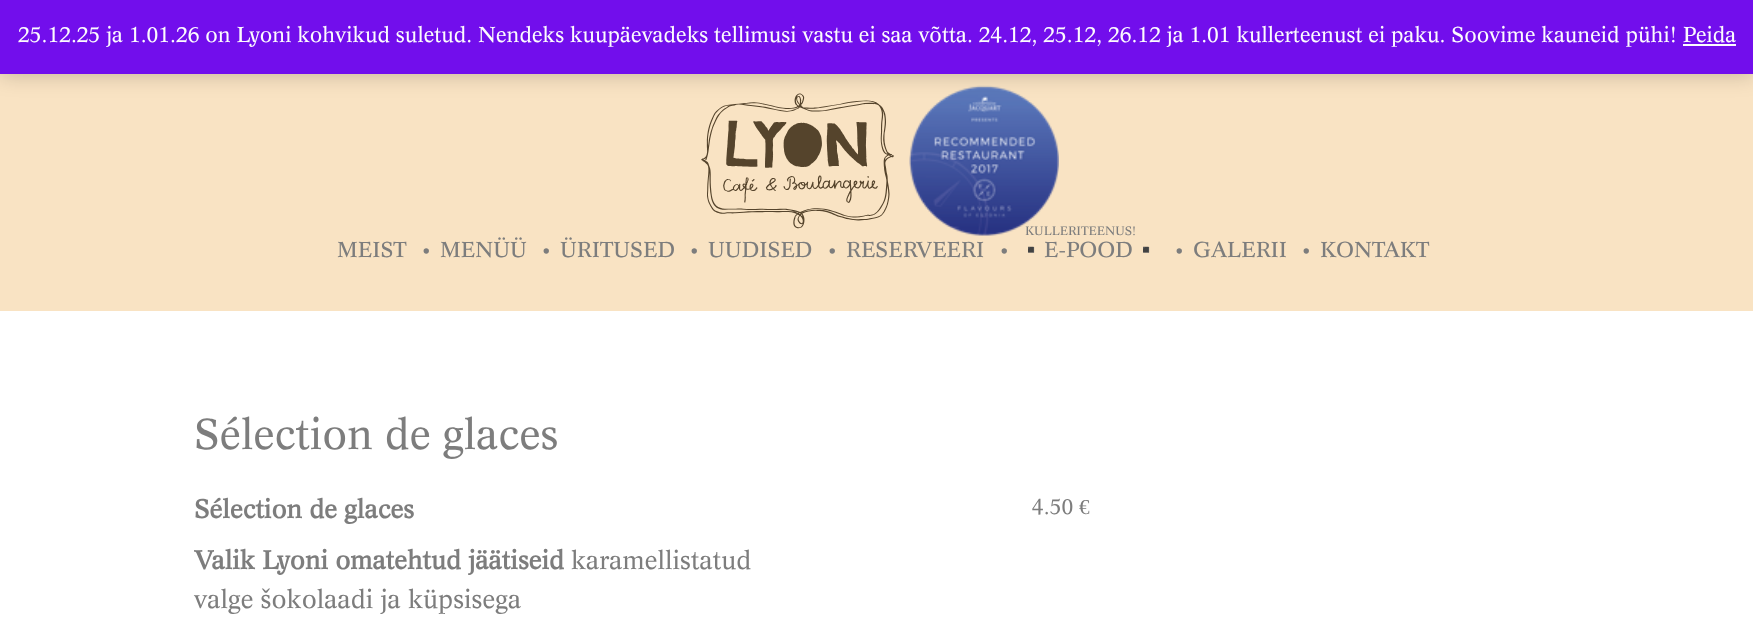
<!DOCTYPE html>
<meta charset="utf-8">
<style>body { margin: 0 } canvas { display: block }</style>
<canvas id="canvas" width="1753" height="629"></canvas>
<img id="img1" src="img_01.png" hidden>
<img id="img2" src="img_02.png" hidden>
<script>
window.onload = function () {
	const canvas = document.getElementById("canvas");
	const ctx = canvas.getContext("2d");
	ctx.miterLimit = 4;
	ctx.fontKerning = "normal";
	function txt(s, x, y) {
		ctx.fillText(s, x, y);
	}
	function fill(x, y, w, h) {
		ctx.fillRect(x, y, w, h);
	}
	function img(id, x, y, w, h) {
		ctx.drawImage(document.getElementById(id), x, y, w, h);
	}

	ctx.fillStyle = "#F9E3C3";
	fill(0, 0, 1753, 629);
	img("img1", 701, 93, 193, 136);
	img("img2", 909, 85, 150, 151);
	ctx.fillStyle = "rgba(0, 0, 0, 0.2)";
	ctx.filter = "blur(10.5px)";
	ctx.beginPath();
	ctx.rect(0, 2, 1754, 73);
	ctx.fill();
	ctx.filter = "none";
	ctx.fillStyle = "#720EEC";
	fill(0, 0, 1753, 74);
	ctx.fillStyle = "#FCFBFE";
	fill(1683, 44, 53, 2);
	ctx.fillStyle = "#FFFFFF";
	fill(0, 311, 1753, 318);
	ctx.font = "21.15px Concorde";
	ctx.fillStyle = "#FCFBFE";
	txt("25.12.25 ja 1.01.26 on Lyoni kohvikud suletud. Nendeks kuupäevadeks tellimusi vastu ei saa võtta. 24.12, 25.12, 26.12 ja 1.01 kullerteenust ei paku. Soovime kauneid pühi! Peida", 18, 42);
	ctx.fillStyle = "#7D7D7D";
	txt("MEIST", 337, 257);
	ctx.font = "45px Concorde";
	txt("·", 420, 265);
	ctx.font = "21.15px Concorde";
	txt("MENÜÜ", 440, 257);
	ctx.font = "45px Concorde";
	txt("·", 540, 265);
	ctx.font = "21.15px Concorde";
	txt("ÜRITUSED", 560, 257);
	ctx.font = "45px Concorde";
	txt("·", 688, 265);
	ctx.font = "21.15px Concorde";
	txt("UUDISED", 708, 257);
	ctx.font = "45px Concorde";
	txt("·", 826, 265);
	ctx.font = "21.15px Concorde";
	txt("RESERVEERI", 846, 257);
	ctx.font = "45px Concorde";
	txt("·", 998, 265);
	ctx.font = "12px Concorde";
	txt("KULLERITEENUS!", 1025, 235);
	ctx.font = "21.15px Noto Color Emoji";
	txt("▪️", 1018, 257);
	ctx.font = "21.15px Concorde";
	txt("E-POOD", 1044, 257);
	ctx.font = "21.15px Noto Color Emoji";
	txt("▪️", 1133, 257);
	ctx.font = "45px Concorde";
	txt("·", 1173, 265);
	ctx.font = "21.15px Concorde";
	txt("GALERII", 1193, 257);
	ctx.font = "45px Concorde";
	txt("·", 1300, 265);
	ctx.font = "21.15px Concorde";
	txt("KONTAKT", 1320, 257);
	ctx.font = "42.25px Concorde";
	txt("Sélection de glaces", 194, 449);
	ctx.font = "bold 25.5px Concorde";
	txt("Sélection de glaces", 194, 518);
	ctx.font = "21.15px Concorde";
	txt("4.50", 1032, 514);
	ctx.font = "21.15px Liberation Serif";
	txt("€", 1079, 514);
	ctx.font = "bold 25.5px Concorde";
	txt("Valik Lyoni omatehtud jäätiseid", 194, 569);
	ctx.font = "25.5px Concorde";
	txt("karamellistatud", 571, 569);
	txt("valge šokolaadi ja küpsisega", 194, 608);
};
</script>
